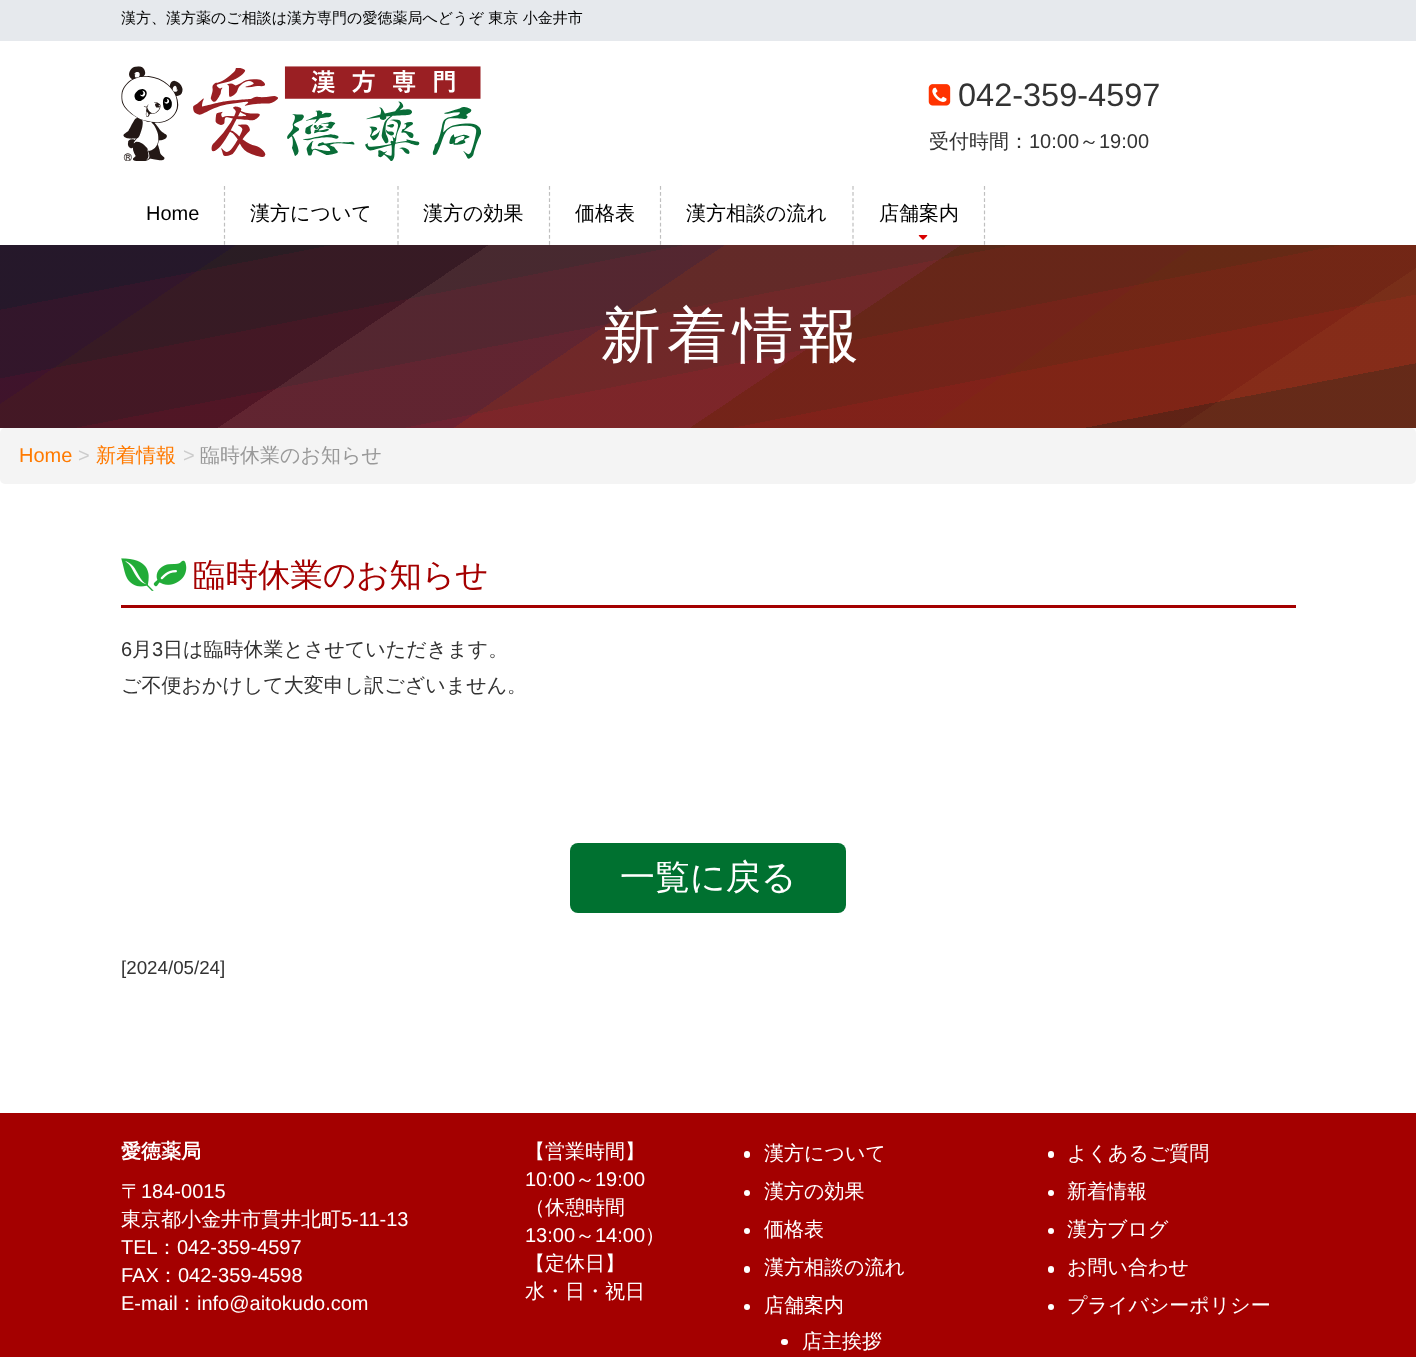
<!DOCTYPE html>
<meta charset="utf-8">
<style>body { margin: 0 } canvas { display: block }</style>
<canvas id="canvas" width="1416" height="1357"></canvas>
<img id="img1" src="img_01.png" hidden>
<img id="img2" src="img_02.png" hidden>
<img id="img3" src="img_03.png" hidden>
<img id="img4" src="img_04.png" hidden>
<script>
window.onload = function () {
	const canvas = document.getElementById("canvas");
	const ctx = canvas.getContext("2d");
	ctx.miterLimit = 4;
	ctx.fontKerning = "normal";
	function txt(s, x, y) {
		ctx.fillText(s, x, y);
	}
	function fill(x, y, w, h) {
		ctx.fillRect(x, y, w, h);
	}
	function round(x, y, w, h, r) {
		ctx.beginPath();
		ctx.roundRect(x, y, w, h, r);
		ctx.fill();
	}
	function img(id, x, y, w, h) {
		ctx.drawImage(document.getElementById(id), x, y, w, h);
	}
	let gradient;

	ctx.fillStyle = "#FFFFFF";
	fill(0, 0, 1416, 1357);
	ctx.fillStyle = "#E6E9ED";
	fill(0, 0, 1416, 41);
	img("img1", 121, 66, 360, 95);
	img("img2", 928, 84, 23, 22);
	ctx.beginPath();
	ctx.moveTo(224.5, 186);
	ctx.lineTo(224.5, 245);
	ctx.strokeStyle = "#BFBFBF";
	ctx.lineWidth = 1.2;
	ctx.setLineDash([3.75, 2.36]);
	ctx.stroke();
	ctx.beginPath();
	ctx.moveTo(398, 186);
	ctx.lineTo(398, 245);
	ctx.stroke();
	ctx.beginPath();
	ctx.moveTo(549.5, 186);
	ctx.lineTo(549.5, 245);
	ctx.stroke();
	ctx.beginPath();
	ctx.moveTo(660.5, 186);
	ctx.lineTo(660.5, 245);
	ctx.stroke();
	ctx.beginPath();
	ctx.moveTo(853, 186);
	ctx.lineTo(853, 245);
	ctx.stroke();
	ctx.beginPath();
	ctx.moveTo(984.5, 186);
	ctx.lineTo(984.5, 245);
	ctx.stroke();
	img("img3", 918, 235, 10, 5);
	gradient = ctx.createLinearGradient(751, 557, 665, 116);
	gradient.addColorStop(0, "#720505");
	gradient.addColorStop(0.14, "#720505");
	gradient.addColorStop(0.14, "#B20906");
	gradient.addColorStop(0.29, "#B20906");
	gradient.addColorStop(0.29, "#980D05");
	gradient.addColorStop(0.43, "#980D05");
	gradient.addColorStop(0.43, "#7F1204");
	gradient.addColorStop(0.57, "#7F1204");
	gradient.addColorStop(0.57, "#651603");
	gradient.addColorStop(0.71, "#651603");
	gradient.addColorStop(0.71, "#4C1B02");
	gradient.addColorStop(0.86, "#4C1B02");
	gradient.addColorStop(0.86, "#321F01");
	gradient.addColorStop(1, "#321F01");
	ctx.fillStyle = gradient;
	fill(0, 245, 1416, 183);
	gradient = ctx.createLinearGradient(444, -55, 972, 727);
	gradient.addColorStop(0, "rgba(25, 17, 83, 0.5)");
	gradient.addColorStop(0.14, "rgba(25, 17, 83, 0.5)");
	gradient.addColorStop(0.14, "rgba(34, 26, 70, 0.5)");
	gradient.addColorStop(0.29, "rgba(34, 26, 70, 0.5)");
	gradient.addColorStop(0.29, "rgba(67, 55, 93, 0.5)");
	gradient.addColorStop(0.43, "rgba(67, 55, 93, 0.5)");
	gradient.addColorStop(0.43, "rgba(97, 62, 77, 0.5)");
	gradient.addColorStop(0.57, "rgba(97, 62, 77, 0.5)");
	gradient.addColorStop(0.57, "rgba(79, 58, 45, 0.5)");
	gradient.addColorStop(0.71, "rgba(79, 58, 45, 0.5)");
	gradient.addColorStop(0.71, "rgba(77, 64, 38, 0.5)");
	gradient.addColorStop(0.86, "rgba(77, 64, 38, 0.5)");
	gradient.addColorStop(0.86, "rgba(89, 79, 44, 0.5)");
	gradient.addColorStop(1, "rgba(89, 79, 44, 0.5)");
	ctx.fillStyle = gradient;
	fill(0, 245, 1416, 183);
	ctx.fillStyle = "#F4F4F4";
	round(0, 428, 1416, 56, 5);
	ctx.fillStyle = "#A40000";
	fill(121, 605, 1175, 3);
	img("img4", 121, 558, 66, 33);
	ctx.fillStyle = "#007130";
	round(570, 843, 276, 70, 8);
	ctx.fillStyle = "#A40000";
	fill(0, 1113, 1416, 244);
	ctx.fillStyle = "#FFFFFF";
	round(744, 1151, 6, 7, 3);
	ctx.beginPath();
	ctx.arc(747, 1193, 3, 0, Math.PI * 2);
	ctx.fill();
	ctx.beginPath();
	ctx.arc(747, 1231, 3, 0, Math.PI * 2);
	ctx.fill();
	round(744, 1266, 6, 7, 3);
	ctx.beginPath();
	ctx.arc(747, 1307, 3, 0, Math.PI * 2);
	ctx.fill();
	round(781, 1339, 7, 6, 3);
	round(1048, 1151, 6, 7, 3);
	ctx.beginPath();
	ctx.arc(1051, 1193, 3, 0, Math.PI * 2);
	ctx.fill();
	ctx.beginPath();
	ctx.arc(1051, 1231, 3, 0, Math.PI * 2);
	ctx.fill();
	round(1048, 1266, 6, 7, 3);
	ctx.beginPath();
	ctx.arc(1051, 1307, 3, 0, Math.PI * 2);
	ctx.fill();
	ctx.font = "500 15px WenQuanYi Zen Hei";
	ctx.fillStyle = "#000000";
	txt("漢方、漢方薬のご相談は漢方専門の愛徳薬局へどうぞ 東京 小金井市", 121, 23);
	ctx.font = "32.5px Liberation Sans";
	ctx.fillStyle = "#333333";
	txt("042-359-4597", 958, 106);
	ctx.font = "500 20px WenQuanYi Zen Hei";
	txt("受付時間：", 929, 148);
	ctx.font = "20px Liberation Sans";
	txt("10:00", 1029, 148);
	ctx.font = "500 20px WenQuanYi Zen Hei";
	txt("～", 1079, 148);
	ctx.font = "20px Liberation Sans";
	txt("19:00", 1099, 148);
	ctx.fillStyle = "#000000";
	txt("Home", 146, 220);
	ctx.font = "500 20px WenQuanYi Zen Hei";
	txt("漢方について", 250, 220);
	txt("漢方の効果", 423, 220);
	txt("価格表", 575, 220);
	txt("漢方相談の流れ", 686, 220);
	txt("店舗案内", 879, 220);
	ctx.letterSpacing = "6px";
	ctx.font = "500 60px WenQuanYi Zen Hei";
	ctx.fillStyle = "#FFFFFF";
	txt("新着情報", 601, 356);
	ctx.letterSpacing = "0px";
	ctx.font = "20px Liberation Sans";
	ctx.fillStyle = "#FF7A00";
	txt("Home", 19, 462);
	ctx.fillStyle = "#CCCCCC";
	txt(">", 78, 462);
	ctx.font = "500 20px WenQuanYi Zen Hei";
	ctx.fillStyle = "#FF7A00";
	txt("新着情報", 96, 462);
	ctx.font = "20px Liberation Sans";
	ctx.fillStyle = "#CCCCCC";
	txt(">", 183, 462);
	ctx.font = "500 20px WenQuanYi Zen Hei";
	ctx.fillStyle = "#999999";
	txt("臨時休業のお知らせ", 200, 462);
	ctx.font = "500 32.5px WenQuanYi Zen Hei";
	ctx.fillStyle = "#A40000";
	txt("臨時休業のお知らせ", 193, 586);
	ctx.font = "20px Liberation Sans";
	ctx.fillStyle = "#333333";
	txt("6", 121, 656);
	ctx.font = "500 20px WenQuanYi Zen Hei";
	txt("月", 132, 656);
	ctx.font = "20px Liberation Sans";
	txt("3", 152, 656);
	ctx.font = "500 20px WenQuanYi Zen Hei";
	txt("日は臨時休業とさせていただきます。", 163, 656);
	txt("ご不便おかけして大変申し訳ございません。", 121, 692);
	ctx.font = "500 35px WenQuanYi Zen Hei";
	ctx.fillStyle = "#FFFFFF";
	txt("一覧に戻る", 620, 889);
	ctx.font = "18.75px Liberation Sans";
	ctx.fillStyle = "#333333";
	txt("[2024/05/24]", 121, 974);
	ctx.font = "bold 20px WenQuanYi Zen Hei";
	ctx.fillStyle = "#FFFFFF";
	txt("愛徳薬局", 121, 1158);
	ctx.font = "500 20px WenQuanYi Zen Hei";
	txt("〒", 121, 1198);
	ctx.font = "20px Liberation Sans";
	txt("184-0015", 141, 1198);
	ctx.font = "500 20px WenQuanYi Zen Hei";
	txt("東京都小金井市貫井北町", 121, 1226);
	ctx.font = "20px Liberation Sans";
	txt("5-11-13", 341, 1226);
	txt("TEL", 121, 1254);
	ctx.font = "500 20px WenQuanYi Zen Hei";
	txt("：", 157, 1254);
	ctx.font = "20px Liberation Sans";
	txt("042-359-4597", 177, 1254);
	txt("FAX", 121, 1282);
	ctx.font = "500 20px WenQuanYi Zen Hei";
	txt("：", 158, 1282);
	ctx.font = "20px Liberation Sans";
	txt("042-359-4598", 178, 1282);
	txt("E-mail", 121, 1310);
	ctx.font = "500 20px WenQuanYi Zen Hei";
	txt("：", 177, 1310);
	ctx.font = "20px Liberation Sans";
	txt("info@aitokudo.com", 197, 1310);
	ctx.font = "500 20px WenQuanYi Zen Hei";
	txt("【営業時間】", 525, 1158);
	ctx.font = "20px Liberation Sans";
	txt("10:00", 525, 1186);
	ctx.font = "500 20px WenQuanYi Zen Hei";
	txt("～", 575, 1186);
	ctx.font = "20px Liberation Sans";
	txt("19:00", 595, 1186);
	ctx.font = "500 20px WenQuanYi Zen Hei";
	txt("（休憩時間", 525, 1214);
	ctx.font = "20px Liberation Sans";
	txt("13:00", 525, 1242);
	ctx.font = "500 20px WenQuanYi Zen Hei";
	txt("～", 575, 1242);
	ctx.font = "20px Liberation Sans";
	txt("14:00", 595, 1242);
	ctx.font = "500 20px WenQuanYi Zen Hei";
	txt("）", 645, 1242);
	txt("【定休日】", 525, 1270);
	txt("水・日・祝日", 525, 1298);
	txt("漢方について", 764, 1160);
	txt("漢方の効果", 764, 1198);
	txt("価格表", 764, 1236);
	txt("漢方相談の流れ", 764, 1274);
	txt("店舗案内", 764, 1312);
	txt("店主挨拶", 802, 1348);
	txt("よくあるご質問", 1067, 1160);
	txt("新着情報", 1067, 1198);
	txt("漢方ブログ", 1067, 1236);
	txt("お問い合わせ", 1067, 1274);
	txt("プライバシーポリシー", 1067, 1312);
};
</script>
